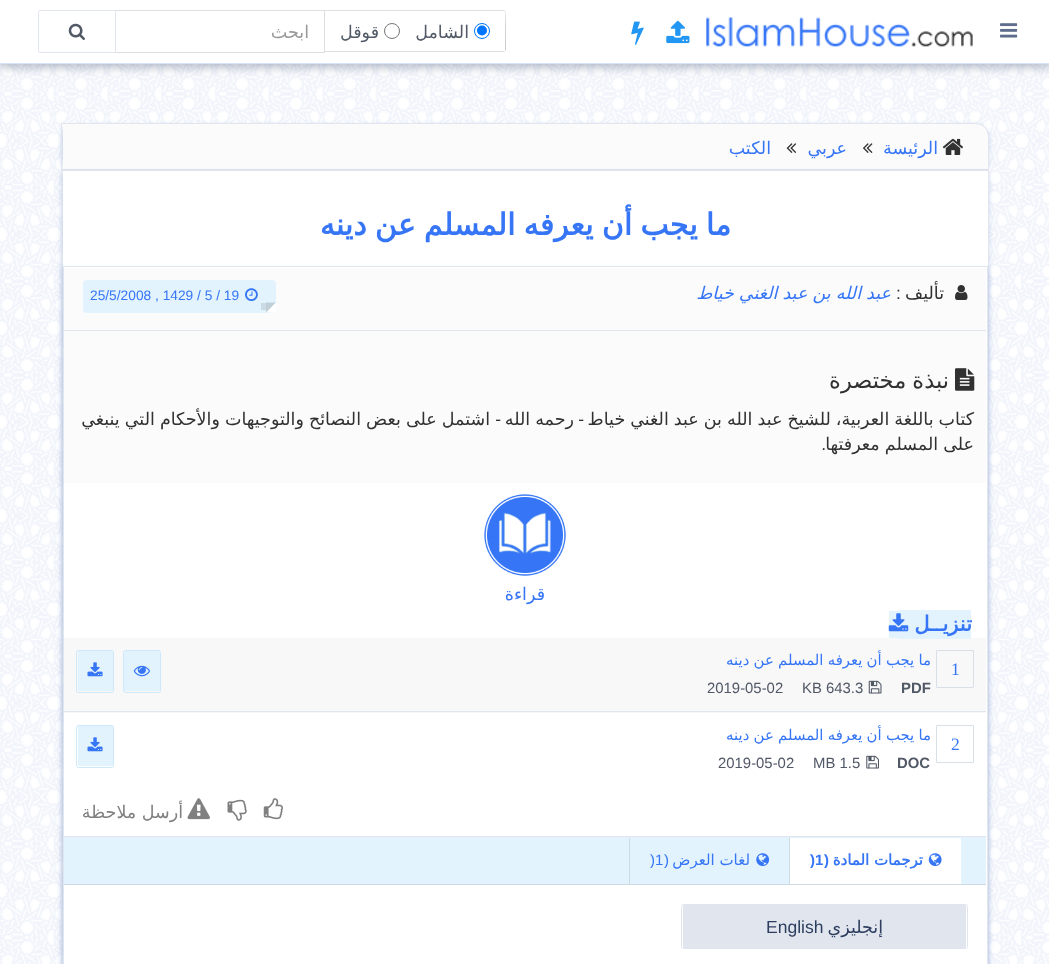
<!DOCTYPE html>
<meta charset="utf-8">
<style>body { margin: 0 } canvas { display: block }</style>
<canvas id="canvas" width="1049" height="964"></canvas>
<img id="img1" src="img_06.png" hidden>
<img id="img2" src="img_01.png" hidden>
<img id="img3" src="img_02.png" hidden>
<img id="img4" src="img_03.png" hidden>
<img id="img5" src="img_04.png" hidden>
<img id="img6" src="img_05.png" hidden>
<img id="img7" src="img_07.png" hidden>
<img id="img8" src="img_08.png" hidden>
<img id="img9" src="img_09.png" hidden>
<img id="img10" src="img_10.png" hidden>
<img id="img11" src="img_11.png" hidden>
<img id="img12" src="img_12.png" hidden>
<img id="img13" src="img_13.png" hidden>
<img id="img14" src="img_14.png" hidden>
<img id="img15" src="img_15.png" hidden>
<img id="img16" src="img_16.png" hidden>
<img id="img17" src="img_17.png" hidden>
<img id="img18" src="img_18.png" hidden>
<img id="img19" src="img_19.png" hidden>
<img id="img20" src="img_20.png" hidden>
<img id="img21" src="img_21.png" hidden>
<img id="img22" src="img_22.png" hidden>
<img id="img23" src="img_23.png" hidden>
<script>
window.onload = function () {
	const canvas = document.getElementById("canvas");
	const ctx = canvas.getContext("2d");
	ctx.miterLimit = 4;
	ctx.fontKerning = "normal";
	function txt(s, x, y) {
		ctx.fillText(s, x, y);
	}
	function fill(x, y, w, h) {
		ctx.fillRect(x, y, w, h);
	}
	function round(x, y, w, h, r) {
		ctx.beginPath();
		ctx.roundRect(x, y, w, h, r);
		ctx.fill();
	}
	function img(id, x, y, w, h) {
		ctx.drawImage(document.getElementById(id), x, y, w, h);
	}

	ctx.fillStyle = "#FFFFFF";
	fill(0, 0, 1049, 964);
	img("img1", 0, 64, 1049, 900);
	ctx.fillStyle = "rgba(45, 62, 95, 0.32)";
	ctx.filter = "blur(5px)";
	ctx.beginPath();
	ctx.rect(0, 4, 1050, 64);
	ctx.fill();
	ctx.filter = "none";
	ctx.fillStyle = "#FFFFFF";
	fill(0, 0, 1049, 63);
	ctx.fillStyle = "#D7E3FD";
	fill(0, 63, 1049, 1);
	img("img2", 1000, 23, 18, 15);
	img("img3", 706, 17, 267, 30);
	img("img4", 666, 20, 24, 24);
	img("img5", 631, 21, 13, 24);
	ctx.fillStyle = "#DFDFDF";
	ctx.beginPath();
	ctx.moveTo(325, 10);
	ctx.lineTo(325, 11);
	ctx.lineTo(504, 11);
	ctx.lineTo(505, 12);
	ctx.lineTo(505, 11);
	ctx.lineTo(504, 10);
	ctx.closePath();
	ctx.fill();
	ctx.fillStyle = "#CCCCCC";
	ctx.beginPath();
	ctx.moveTo(505, 51);
	ctx.bezierCurveTo(505, 50, 505, 16, 505, 12);
	ctx.lineTo(505, 11);
	ctx.bezierCurveTo(506, 12, 506, 47, 506, 50);
	ctx.closePath();
	ctx.fill();
	ctx.fillStyle = "#DFDFDF";
	ctx.beginPath();
	ctx.moveTo(325, 51);
	ctx.lineTo(325, 52);
	ctx.lineTo(504, 52);
	ctx.lineTo(505, 51);
	ctx.closePath();
	ctx.fill();
	ctx.beginPath();
	ctx.arc(482, 31, 7.5, 0, Math.PI * 2);
	ctx.strokeStyle = "#0075FF";
	ctx.stroke();
	ctx.fillStyle = "#0075FF";
	ctx.beginPath();
	ctx.arc(482, 30.5, 5, 0, Math.PI * 2);
	ctx.fill();
	ctx.beginPath();
	ctx.arc(392, 31, 7.5, 0, Math.PI * 2);
	ctx.strokeStyle = "#767676";
	ctx.stroke();
	ctx.strokeStyle = "#DFDFDF";
	ctx.strokeRect(115.5, 10.5, 209, 42);
	ctx.beginPath();
	ctx.roundRect(38.5, 10.5, 77, 42, [2, 0, 0, 2]);
	ctx.strokeStyle = "#E0E5EE";
	ctx.stroke();
	img("img6", 68, 23, 17, 17);
	ctx.fillStyle = "rgba(29, 79, 179, 0.2)";
	ctx.filter = "blur(2.5px)";
	ctx.beginPath();
	ctx.roundRect(61, 125, 928, 48, 13);
	ctx.fill();
	ctx.filter = "none";
	ctx.fillStyle = "#FBFBFB";
	ctx.beginPath();
	ctx.roundRect(63, 124, 925, 45, [0, 11, 0, 0]);
	ctx.fill();
	ctx.beginPath();
	ctx.roundRect(61.5, 123.5, 927, 46, [0, 12.5, 0, 0]);
	ctx.stroke();
	img("img7", 942, 138, 21, 17);
	img("img8", 863, 143, 10, 10);
	img("img9", 786, 143, 11, 10);
	ctx.fillStyle = "rgba(29, 79, 179, 0.2)";
	ctx.filter = "blur(2.5px)";
	ctx.beginPath();
	ctx.rect(61, 173, 928, 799);
	ctx.fill();
	ctx.filter = "none";
	ctx.fillStyle = "#FFFFFF";
	fill(63, 171, 925, 793);
	ctx.strokeRect(61.5, 170.5, 927, 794);
	ctx.save();
	ctx.beginPath();
	ctx.moveTo(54, 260);
	ctx.lineTo(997, 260);
	ctx.lineTo(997, 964);
	ctx.lineTo(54, 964);
	ctx.closePath();
	ctx.moveTo(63, 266);
	ctx.lineTo(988, 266);
	ctx.lineTo(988, 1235);
	ctx.lineTo(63, 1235);
	ctx.closePath();
	ctx.clip("evenodd");
	ctx.fillStyle = "rgba(29, 79, 179, 0.2)";
	ctx.filter = "blur(2.5px)";
	ctx.beginPath();
	ctx.rect(63, 269, 925, 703);
	ctx.fill();
	ctx.filter = "none";
	ctx.restore();
	ctx.strokeRect(63.5, 266.5, 924, 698);
	ctx.fillStyle = "#FBFBFB";
	fill(64, 268, 922, 62);
	ctx.fillStyle = "#E0E5EE";
	fill(64, 330, 922, 1);
	img("img10", 955, 285, 13, 15);
	ctx.fillStyle = "#E3F3FD";
	round(83, 280, 193, 33, 4);
	img("img11", 245, 288, 13, 14);
	ctx.save();
	ctx.beginPath();
	ctx.moveTo(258, 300);
	ctx.lineTo(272, 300);
	ctx.lineTo(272, 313);
	ctx.lineTo(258, 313);
	ctx.closePath();
	ctx.moveTo(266, 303);
	ctx.lineTo(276, 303);
	ctx.lineTo(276, 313);
	ctx.lineTo(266, 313);
	ctx.closePath();
	ctx.clip("evenodd");
	ctx.fillStyle = "rgba(0, 0, 0, 0.1)";
	ctx.filter = "blur(0.5px)";
	ctx.beginPath();
	ctx.rect(261, 303, 8, 7);
	ctx.fill();
	ctx.filter = "none";
	ctx.restore();
	ctx.fillStyle = "#C1CFD7";
	ctx.beginPath();
	ctx.moveTo(266, 302.5);
	ctx.lineTo(276, 302.5);
	ctx.lineTo(271, 307.5);
	ctx.closePath();
	ctx.fill();
	ctx.fillStyle = "#FFFFFF";
	ctx.beginPath();
	ctx.moveTo(276, 302.5);
	ctx.lineTo(276, 312.5);
	ctx.lineTo(271, 307.5);
	ctx.closePath();
	ctx.fill();
	ctx.beginPath();
	ctx.moveTo(276, 312.5);
	ctx.lineTo(266, 312.5);
	ctx.lineTo(271, 307.5);
	ctx.closePath();
	ctx.fill();
	ctx.fillStyle = "rgba(0, 0, 0, 0.15)";
	ctx.beginPath();
	ctx.moveTo(266, 312.5);
	ctx.lineTo(266, 302.5);
	ctx.lineTo(271, 307.5);
	ctx.closePath();
	ctx.fill();
	ctx.fillStyle = "#FBFBFB";
	fill(64, 331, 922, 152);
	img("img12", 955, 368, 20, 23);
	img("img13", 484, 494, 82, 82);
	ctx.fillStyle = "#F8F8F8";
	fill(64, 638, 922, 75);
	ctx.fillStyle = "#E3F3FD";
	ctx.beginPath();
	ctx.roundRect(895, 610, 76, 29, [5, 0, 0, 5]);
	ctx.fill();
	ctx.beginPath();
	ctx.roundRect(889, 611, 32, 27, [0, 5, 5, 0]);
	ctx.fill();
	img("img14", 888, 613, 21, 19);
	ctx.fillStyle = "#E0E5EE";
	fill(64, 711, 922, 1);
	ctx.beginPath();
	ctx.roundRect(936.5, 650.5, 37, 37, 0.5);
	ctx.strokeStyle = "#D9DFE9";
	ctx.stroke();
	img("img15", 868, 680, 14, 14);
	ctx.fillStyle = "#E3F3FD";
	round(124, 651, 36, 40, 1);
	ctx.beginPath();
	ctx.roundRect(123.5, 650.5, 37, 42, 2);
	ctx.strokeStyle = "#CBE9FB";
	ctx.stroke();
	img("img16", 133, 665, 17, 12);
	round(78, 651, 35, 40, 1);
	ctx.beginPath();
	ctx.roundRect(76.5, 650.5, 37, 42, 2);
	ctx.stroke();
	img("img17", 87, 662, 16, 15);
	ctx.beginPath();
	ctx.roundRect(936.5, 725.5, 37, 37, 0.5);
	ctx.strokeStyle = "#D9DFE9";
	ctx.stroke();
	img("img18", 866, 755, 13, 14);
	round(78, 726, 35, 40, 1);
	ctx.beginPath();
	ctx.roundRect(76.5, 725.5, 37, 42, 2);
	ctx.strokeStyle = "#CBE9FB";
	ctx.stroke();
	img("img17", 87, 737, 16, 15);
	img("img19", 263, 798, 20, 22);
	img("img20", 227, 799, 20, 22);
	img("img21", 187, 798, 23, 22);
	fill(64, 837, 922, 47);
	ctx.fillStyle = "#E0E5EE";
	fill(64, 836, 922, 1);
	ctx.fillStyle = "#CCDBE4";
	fill(64, 884, 922, 1);
	ctx.fillStyle = "#FFFFFF";
	fill(790, 838, 171, 46);
	ctx.fillStyle = "#CCDBE4";
	fill(789, 838, 1, 46);
	img("img22", 928, 853, 14, 14);
	fill(629, 838, 1, 46);
	img("img23", 756, 853, 14, 14);
	ctx.fillStyle = "#E0E5EE";
	round(683, 905, 283, 43, 1);
	ctx.beginPath();
	ctx.roundRect(681.5, 904.5, 286, 44, 2);
	ctx.strokeStyle = "#E0E5EE";
	ctx.stroke();
	ctx.direction = "rtl";
	ctx.font = "17.5px DejaVu Sans";
	ctx.fillStyle = "#515866";
	txt("الشامل", 469, 38);
	txt("قوقل", 379, 38);
	ctx.fillStyle = "#999999";
	txt("ابحث", 309, 38);
	ctx.fillStyle = "#3575F6";
	txt("الرئيسة", 938, 154);
	txt("عربي", 847, 154);
	txt("الكتب", 771, 154);
	ctx.wordSpacing = "-1.25px";
	ctx.font = "bold 30px DejaVu Sans";
	txt("ما يجب أن يعرفه المسلم عن دينه", 731, 235);
	ctx.wordSpacing = "0px";
	ctx.font = "17.5px DejaVu Sans";
	ctx.fillStyle = "#313131";
	txt("تأليف", 944, 299);
	ctx.direction = "ltr";
	ctx.font = "17.5px Liberation Sans";
	txt(":", 896, 299);
	ctx.wordSpacing = "-0.5px";
	ctx.direction = "rtl";
	ctx.font = "italic 17.5px DejaVu Sans";
	ctx.fillStyle = "#3575F6";
	txt("عبد الله بن عبد الغني خياط", 891, 299);
	ctx.wordSpacing = "0px";
	ctx.direction = "ltr";
	ctx.font = "13.75px Liberation Sans";
	txt("25/5/2008 , 1429 / 5 / 19", 90, 300);
	ctx.wordSpacing = "-1px";
	ctx.direction = "rtl";
	ctx.font = "22.5px DejaVu Sans";
	ctx.fillStyle = "#313131";
	txt("نبذة مختصرة", 949, 388);
	ctx.wordSpacing = "-0.5px";
	ctx.font = "17.5px DejaVu Sans";
	txt("كتاب باللغة العربية، للشيخ عبد الله بن عبد الغني خياط", 974, 425);
	ctx.wordSpacing = "0px";
	ctx.font = "17.5px Liberation Sans";
	txt("-", 584, 425);
	ctx.wordSpacing = "-0.5px";
	ctx.font = "17.5px DejaVu Sans";
	txt("رحمه الله", 574, 425);
	ctx.wordSpacing = "0px";
	ctx.font = "17.5px Liberation Sans";
	txt("-", 501, 425);
	ctx.wordSpacing = "-0.5px";
	ctx.font = "17.5px DejaVu Sans";
	txt("اشتمل على بعض النصائح والتوجيهات والأحكام التي ينبغي", 490, 425);
	txt("على المسلم معرفتها", 974, 450);
	ctx.wordSpacing = "0px";
	ctx.font = "17.5px Liberation Sans";
	txt(".", 826, 450);
	ctx.font = "17.5px DejaVu Sans";
	ctx.fillStyle = "#3575F6";
	txt("قراءة", 545, 600);
	ctx.font = "bold 21px DejaVu Sans";
	txt("تنزيــل", 972, 631);
	ctx.direction = "ltr";
	ctx.font = "17.5px Liberation Serif";
	txt("1", 951, 675);
	ctx.save();
	ctx.beginPath();
	ctx.rect(708, 650, 222, 21);
	ctx.clip();
	ctx.wordSpacing = "-0.5px";
	ctx.direction = "rtl";
	ctx.font = "14.9px DejaVu Sans";
	txt("ما يجب أن يعرفه المسلم عن دينه", 931, 665);
	ctx.restore();
	ctx.font = "bold 14.9px Liberation Sans";
	ctx.fillStyle = "#515866";
	txt("PDF", 901, 693);
	ctx.font = "14.9px Liberation Sans";
	txt("KB 643.3", 802, 693);
	txt("2019-05-02", 707, 693);
	ctx.font = "17.5px Liberation Serif";
	ctx.fillStyle = "#3575F6";
	txt("2", 951, 750);
	ctx.save();
	ctx.beginPath();
	ctx.rect(718, 725, 212, 21);
	ctx.clip();
	ctx.wordSpacing = "-0.5px";
	ctx.direction = "rtl";
	ctx.font = "14.9px DejaVu Sans";
	txt("ما يجب أن يعرفه المسلم عن دينه", 931, 740);
	ctx.restore();
	ctx.font = "bold 14.9px Liberation Sans";
	ctx.fillStyle = "#515866";
	txt("DOC", 897, 768);
	ctx.font = "14.9px Liberation Sans";
	txt("MB 1.5", 813, 768);
	txt("2019-05-02", 718, 768);
	ctx.direction = "rtl";
	ctx.font = "17.5px DejaVu Sans";
	ctx.fillStyle = "#808080";
	txt("أرسل ملاحظة", 183, 818);
	ctx.font = "bold 15px DejaVu Sans";
	ctx.fillStyle = "#3575F6";
	txt("ترجمات المادة", 923, 865);
	ctx.font = "bold 15px Liberation Sans";
	txt("(", 829, 865);
	ctx.direction = "ltr";
	txt(")1", 810, 865);
	ctx.direction = "rtl";
	ctx.font = "15px DejaVu Sans";
	txt("لغات العرض", 750, 865);
	ctx.font = "15px Liberation Sans";
	txt("(", 669, 865);
	ctx.direction = "ltr";
	txt(")1", 650, 865);
	ctx.direction = "rtl";
	ctx.font = "17.5px DejaVu Sans";
	ctx.fillStyle = "#2D3E5F";
	txt("إنجليزي", 883, 933);
	ctx.direction = "ltr";
	ctx.font = "17.5px Liberation Sans";
	txt("English", 766, 933);
};
</script>
